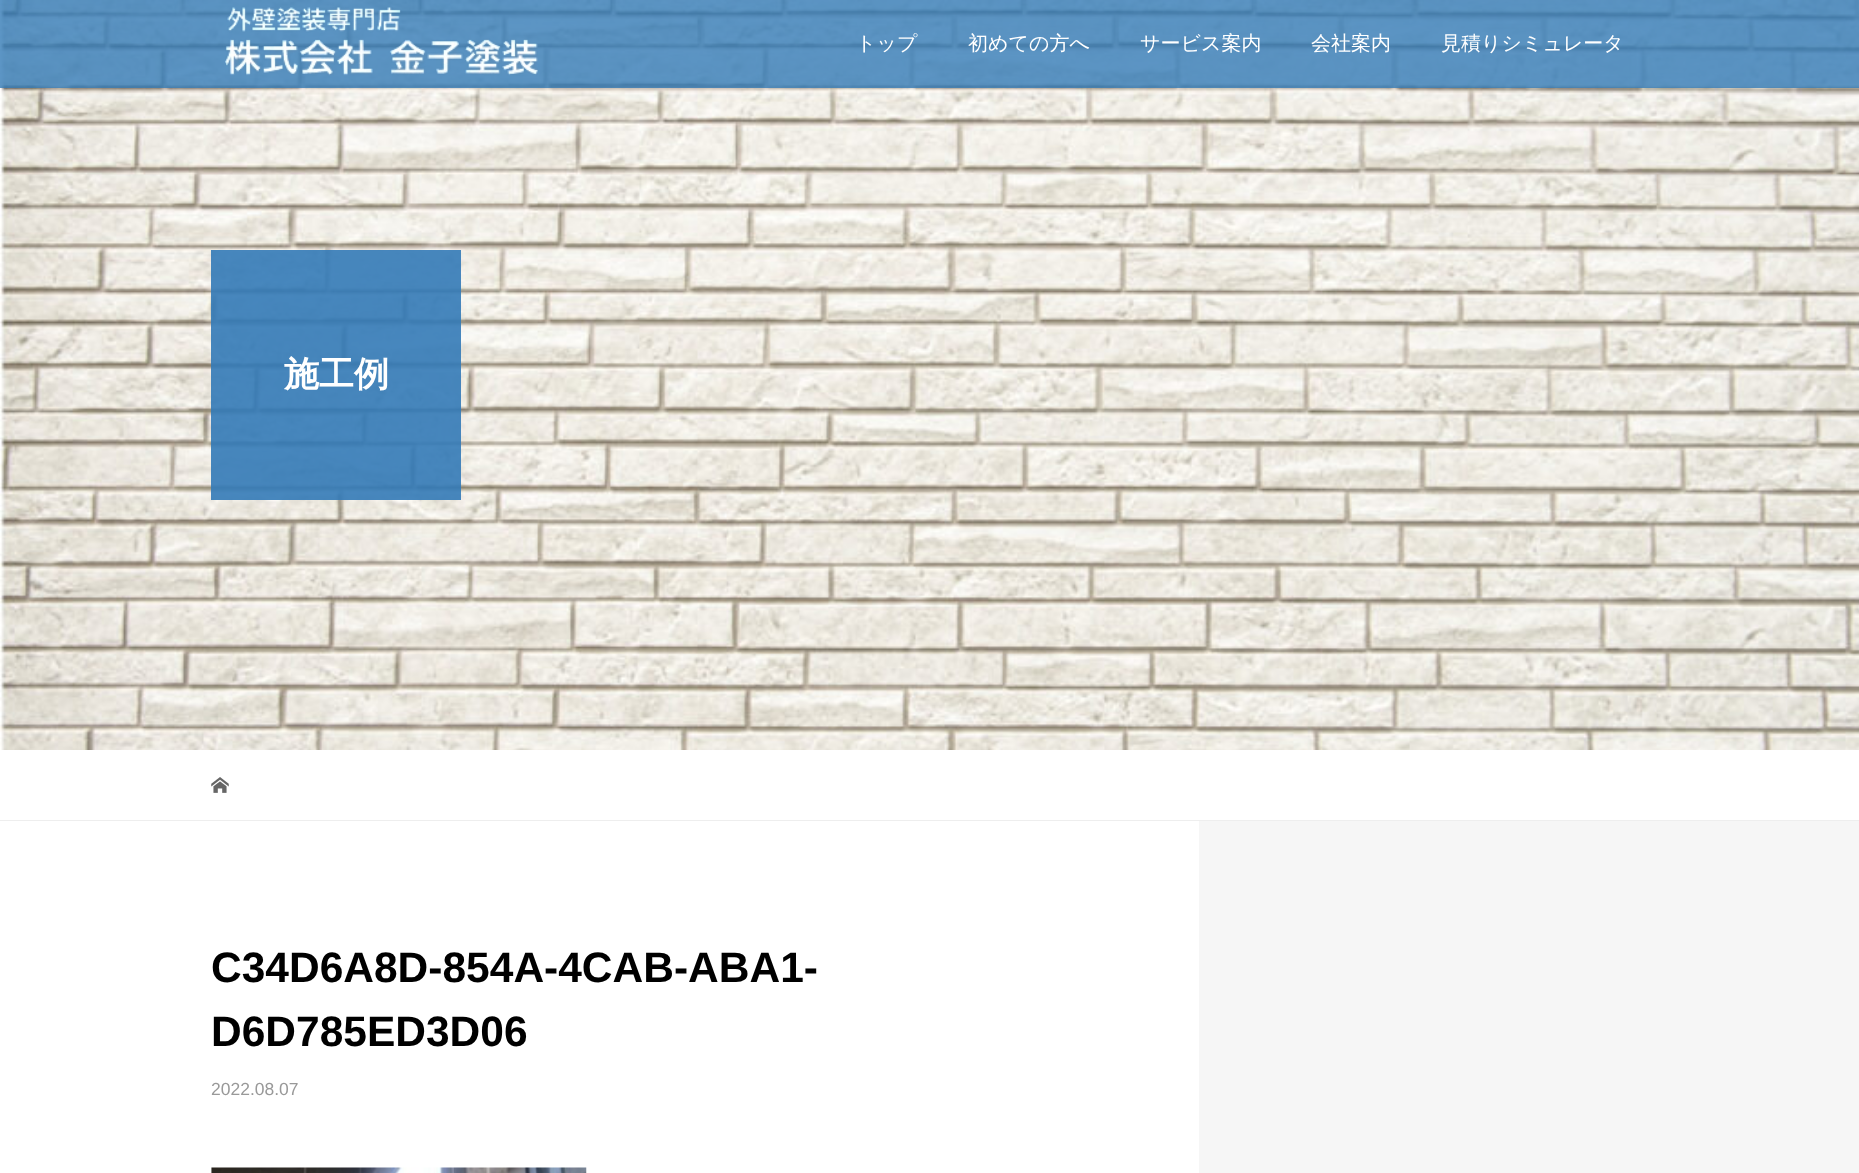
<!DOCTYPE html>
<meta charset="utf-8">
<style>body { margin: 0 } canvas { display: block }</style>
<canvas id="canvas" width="1859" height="1173"></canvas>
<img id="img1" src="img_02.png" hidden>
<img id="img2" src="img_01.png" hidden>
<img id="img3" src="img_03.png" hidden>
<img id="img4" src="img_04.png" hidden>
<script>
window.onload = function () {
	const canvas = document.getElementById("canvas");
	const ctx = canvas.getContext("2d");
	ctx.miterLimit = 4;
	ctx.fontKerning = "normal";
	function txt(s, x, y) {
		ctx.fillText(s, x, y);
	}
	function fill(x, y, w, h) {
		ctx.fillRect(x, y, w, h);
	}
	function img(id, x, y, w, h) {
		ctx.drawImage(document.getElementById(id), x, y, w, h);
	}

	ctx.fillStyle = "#FFFFFF";
	fill(0, 0, 1859, 1173);
	img("img1", 0, 0, 1859, 750);
	ctx.fillStyle = "rgba(51, 122, 183, 0.8)";
	fill(0, 0, 1859, 88);
	img("img2", 225, 7, 313, 69);
	ctx.fillStyle = "rgba(51, 122, 183, 0.9)";
	fill(211, 250, 250, 250);
	ctx.fillStyle = "#EEEEEE";
	fill(0, 820, 1859, 1);
	img("img3", 211, 777, 18, 16);
	ctx.fillStyle = "#F6F6F6";
	fill(1199, 821, 660, 352);
	img("img4", 211, 1167, 376, 6);
	ctx.font = "500 20px WenQuanYi Zen Hei";
	ctx.fillStyle = "#FFFFFF";
	txt("トップ", 856, 50);
	txt("初めての方へ", 968, 50);
	txt("サービス案内", 1140, 50);
	txt("会社案内", 1311, 50);
	txt("見積りシミュレータ", 1441, 50);
	ctx.font = "bold 35px WenQuanYi Zen Hei";
	txt("施工例", 284, 386);
	ctx.font = "bold 42.5px Liberation Sans";
	ctx.fillStyle = "#000000";
	txt("C34D6A8D-854A-4CAB-ABA1-", 211, 982);
	txt("D6D785ED3D06", 211, 1046);
	ctx.font = "17.5px Liberation Sans";
	ctx.fillStyle = "#999999";
	txt("2022.08.07", 211, 1095);
};
</script>
